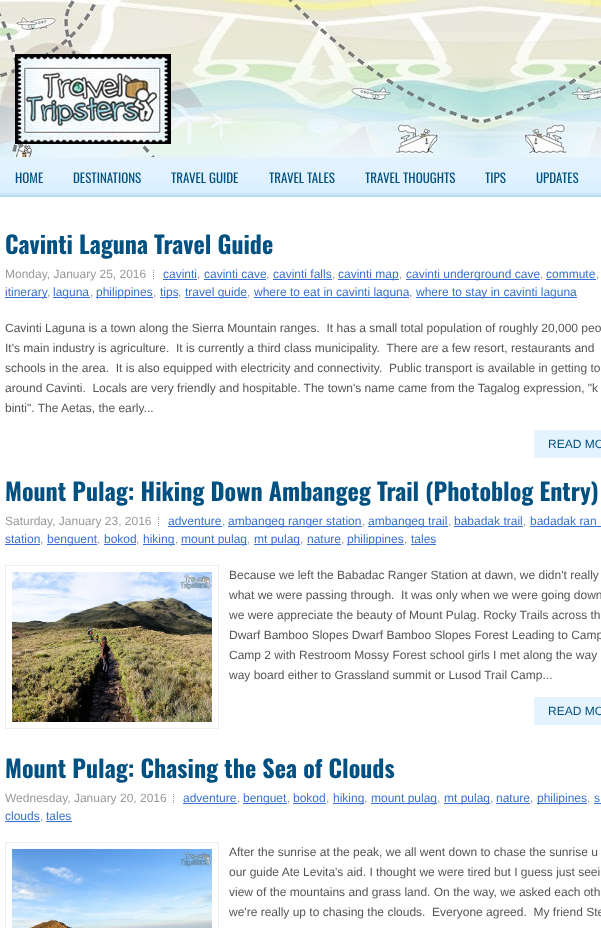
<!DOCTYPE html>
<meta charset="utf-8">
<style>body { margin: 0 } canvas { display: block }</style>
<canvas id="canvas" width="601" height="928"></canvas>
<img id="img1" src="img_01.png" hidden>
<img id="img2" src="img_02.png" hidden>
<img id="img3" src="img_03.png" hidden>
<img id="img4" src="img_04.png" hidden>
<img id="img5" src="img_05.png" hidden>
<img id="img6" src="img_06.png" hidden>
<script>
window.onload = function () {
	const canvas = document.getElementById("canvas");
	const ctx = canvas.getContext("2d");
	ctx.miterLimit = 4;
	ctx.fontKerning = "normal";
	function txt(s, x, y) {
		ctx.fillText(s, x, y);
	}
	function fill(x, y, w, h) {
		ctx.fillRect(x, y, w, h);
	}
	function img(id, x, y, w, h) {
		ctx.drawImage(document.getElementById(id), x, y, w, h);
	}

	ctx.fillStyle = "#FFFFFF";
	fill(0, 0, 601, 928);
	img("img1", 0, 0, 601, 157);
	img("img2", 15, 54, 156, 90);
	img("img3", 0, 157, 601, 40);
	img("img4", 153, 270, 1, 9);
	ctx.fillStyle = "#3971CE";
	fill(163, 279, 34, 1);
	fill(204, 279, 62, 1);
	fill(273, 279, 59, 1);
	fill(338, 279, 61, 1);
	fill(406, 279, 134, 1);
	fill(546, 279, 50, 1);
	fill(5, 297, 42, 1);
	fill(53, 297, 37, 1);
	fill(96, 297, 57, 1);
	fill(160, 297, 18, 1);
	fill(185, 297, 62, 1);
	fill(254, 297, 155, 1);
	fill(416, 297, 161, 1);
	ctx.fillStyle = "#E5F3FF";
	fill(534, 430, 67, 28);
	img("img4", 158, 517, 1, 9);
	ctx.fillStyle = "#3971CE";
	fill(168, 526, 54, 1);
	fill(228, 526, 134, 1);
	fill(368, 526, 80, 1);
	fill(454, 526, 69, 1);
	fill(530, 526, 71, 1);
	fill(5, 544, 35, 1);
	fill(47, 544, 50, 1);
	fill(104, 544, 32, 1);
	fill(143, 544, 32, 1);
	fill(181, 544, 66, 1);
	fill(254, 544, 46, 1);
	fill(307, 544, 34, 1);
	fill(347, 544, 57, 1);
	fill(411, 544, 25, 1);
	ctx.strokeStyle = "#EEEEEE";
	ctx.strokeRect(5.5, 565.5, 213, 163);
	img("img5", 12, 572, 200, 150);
	ctx.fillStyle = "#E5F3FF";
	fill(534, 697, 67, 28);
	img("img4", 173, 794, 1, 9);
	ctx.fillStyle = "#3971CE";
	fill(183, 803, 54, 1);
	fill(243, 803, 44, 1);
	fill(293, 803, 33, 1);
	fill(333, 803, 31, 1);
	fill(371, 803, 66, 1);
	fill(444, 803, 46, 1);
	fill(496, 803, 34, 1);
	fill(537, 803, 50, 1);
	fill(594, 803, 7, 1);
	fill(5, 821, 35, 1);
	fill(46, 821, 26, 1);
	ctx.strokeRect(5.5, 842.5, 213, 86);
	img("img6", 12, 849, 200, 79);
	ctx.font = "13px Oswald";
	ctx.fillStyle = "#005181";
	txt("HOME", 15, 183);
	txt("DESTINATIONS", 73, 183);
	txt("TRAVEL GUIDE", 171, 183);
	txt("TRAVEL TALES", 269, 183);
	txt("TRAVEL THOUGHTS", 365, 183);
	txt("TIPS", 485, 183);
	txt("UPDATES", 536, 183);
	ctx.font = "bold 24px Oswald";
	txt("Cavinti Laguna Travel Guide", 5, 254);
	ctx.font = "12px Liberation Sans";
	ctx.fillStyle = "#999999";
	txt("Monday, January 25, 2016", 5, 278);
	ctx.fillStyle = "#3971CE";
	txt("cavinti", 163, 278);
	ctx.fillStyle = "#999999";
	txt(",", 197, 278);
	ctx.fillStyle = "#3971CE";
	txt("cavinti cave", 204, 278);
	ctx.fillStyle = "#999999";
	txt(",", 266, 278);
	ctx.fillStyle = "#3971CE";
	txt("cavinti falls", 273, 278);
	ctx.fillStyle = "#999999";
	txt(",", 332, 278);
	ctx.fillStyle = "#3971CE";
	txt("cavinti map", 338, 278);
	ctx.fillStyle = "#999999";
	txt(",", 399, 278);
	ctx.fillStyle = "#3971CE";
	txt("cavinti underground cave", 406, 278);
	ctx.fillStyle = "#999999";
	txt(",", 540, 278);
	ctx.fillStyle = "#3971CE";
	txt("commute", 546, 278);
	ctx.fillStyle = "#999999";
	txt(",", 596, 278);
	ctx.fillStyle = "#3971CE";
	txt("itinerary", 5, 296);
	ctx.fillStyle = "#999999";
	txt(",", 47, 296);
	ctx.fillStyle = "#3971CE";
	txt("laguna", 53, 296);
	ctx.fillStyle = "#999999";
	txt(",", 90, 296);
	ctx.fillStyle = "#3971CE";
	txt("philippines", 96, 296);
	ctx.fillStyle = "#999999";
	txt(",", 153, 296);
	ctx.fillStyle = "#3971CE";
	txt("tips", 160, 296);
	ctx.fillStyle = "#999999";
	txt(",", 178, 296);
	ctx.fillStyle = "#3971CE";
	txt("travel guide", 185, 296);
	ctx.fillStyle = "#999999";
	txt(",", 247, 296);
	ctx.fillStyle = "#3971CE";
	txt("where to eat in cavinti laguna", 254, 296);
	ctx.fillStyle = "#999999";
	txt(",", 409, 296);
	ctx.fillStyle = "#3971CE";
	txt("where to stay in cavinti laguna", 416, 296);
	ctx.fillStyle = "#555555";
	txt("Cavinti Laguna is a town along the Sierra Mountain ranges.  It has a small total population of roughly 20,000 peo", 5, 332);
	txt("It's main industry is agriculture.  It is currently a third class municipality.  There are a few resort, restaurants and", 5, 352);
	txt("schools in the area.  It is also equipped with electricity and connectivity.  Public transport is available in getting to", 5, 372);
	txt("around Cavinti.  Locals are very friendly and hospitable. The town's name came from the Tagalog expression, \"k", 5, 392);
	txt("binti\". The Aetas, the early...", 5, 412);
	ctx.fillStyle = "#005181";
	txt("READ MO", 548, 448);
	ctx.font = "bold 24px Oswald";
	txt("Mount Pulag: Hiking Down Ambangeg Trail (Photoblog Entry)", 5, 501);
	ctx.font = "12px Liberation Sans";
	ctx.fillStyle = "#999999";
	txt("Saturday, January 23, 2016", 5, 525);
	ctx.fillStyle = "#3971CE";
	txt("adventure", 168, 525);
	ctx.fillStyle = "#999999";
	txt(",", 222, 525);
	ctx.fillStyle = "#3971CE";
	txt("ambangeg ranger station", 228, 525);
	ctx.fillStyle = "#999999";
	txt(",", 362, 525);
	ctx.fillStyle = "#3971CE";
	txt("ambangeg trail", 368, 525);
	ctx.fillStyle = "#999999";
	txt(",", 448, 525);
	ctx.fillStyle = "#3971CE";
	txt("babadak trail", 454, 525);
	ctx.fillStyle = "#999999";
	txt(",", 523, 525);
	ctx.fillStyle = "#3971CE";
	txt("badadak ran", 530, 525);
	txt("station", 5, 543);
	ctx.fillStyle = "#999999";
	txt(",", 40, 543);
	ctx.fillStyle = "#3971CE";
	txt("benguent", 47, 543);
	ctx.fillStyle = "#999999";
	txt(",", 97, 543);
	ctx.fillStyle = "#3971CE";
	txt("bokod", 104, 543);
	ctx.fillStyle = "#999999";
	txt(",", 136, 543);
	ctx.fillStyle = "#3971CE";
	txt("hiking", 143, 543);
	ctx.fillStyle = "#999999";
	txt(",", 175, 543);
	ctx.fillStyle = "#3971CE";
	txt("mount pulag", 181, 543);
	ctx.fillStyle = "#999999";
	txt(",", 247, 543);
	ctx.fillStyle = "#3971CE";
	txt("mt pulag", 254, 543);
	ctx.fillStyle = "#999999";
	txt(",", 300, 543);
	ctx.fillStyle = "#3971CE";
	txt("nature", 307, 543);
	ctx.fillStyle = "#999999";
	txt(",", 341, 543);
	ctx.fillStyle = "#3971CE";
	txt("philippines", 347, 543);
	ctx.fillStyle = "#999999";
	txt(",", 404, 543);
	ctx.fillStyle = "#3971CE";
	txt("tales", 411, 543);
	ctx.fillStyle = "#555555";
	txt("Because we left the Babadac Ranger Station at dawn, we didn't really", 229, 579);
	txt("what we were passing through.  It was only when we were going down", 229, 599);
	txt("we were appreciate the beauty of Mount Pulag. Rocky Trails across th", 229, 619);
	txt("Dwarf Bamboo Slopes Dwarf Bamboo Slopes Forest Leading to Camp", 229, 639);
	txt("Camp 2 with Restroom Mossy Forest school girls I met along the way", 229, 659);
	txt("way board either to Grassland summit or Lusod Trail Camp...", 229, 679);
	ctx.fillStyle = "#005181";
	txt("READ MO", 548, 715);
	ctx.font = "bold 24px Oswald";
	txt("Mount Pulag: Chasing the Sea of Clouds", 5, 778);
	ctx.font = "12px Liberation Sans";
	ctx.fillStyle = "#999999";
	txt("Wednesday, January 20, 2016", 5, 802);
	ctx.fillStyle = "#3971CE";
	txt("adventure", 183, 802);
	ctx.fillStyle = "#999999";
	txt(",", 237, 802);
	ctx.fillStyle = "#3971CE";
	txt("benguet", 243, 802);
	ctx.fillStyle = "#999999";
	txt(",", 287, 802);
	ctx.fillStyle = "#3971CE";
	txt("bokod", 293, 802);
	ctx.fillStyle = "#999999";
	txt(",", 326, 802);
	ctx.fillStyle = "#3971CE";
	txt("hiking", 333, 802);
	ctx.fillStyle = "#999999";
	txt(",", 364, 802);
	ctx.fillStyle = "#3971CE";
	txt("mount pulag", 371, 802);
	ctx.fillStyle = "#999999";
	txt(",", 437, 802);
	ctx.fillStyle = "#3971CE";
	txt("mt pulag", 444, 802);
	ctx.fillStyle = "#999999";
	txt(",", 490, 802);
	ctx.fillStyle = "#3971CE";
	txt("nature", 496, 802);
	ctx.fillStyle = "#999999";
	txt(",", 530, 802);
	ctx.fillStyle = "#3971CE";
	txt("philipines", 537, 802);
	ctx.fillStyle = "#999999";
	txt(",", 587, 802);
	ctx.fillStyle = "#3971CE";
	txt("s", 594, 802);
	txt("clouds", 5, 820);
	ctx.fillStyle = "#999999";
	txt(",", 40, 820);
	ctx.fillStyle = "#3971CE";
	txt("tales", 46, 820);
	ctx.fillStyle = "#555555";
	txt("After the sunrise at the peak, we all went down to chase the sunrise u", 229, 856);
	txt("our guide Ate Levita's aid. I thought we were tired but I guess just seei", 229, 876);
	txt("view of the mountains and grass land. On the way, we asked each oth", 229, 896);
	txt("we're really up to chasing the clouds.  Everyone agreed.  My friend Ste", 229, 916);
};
</script>
